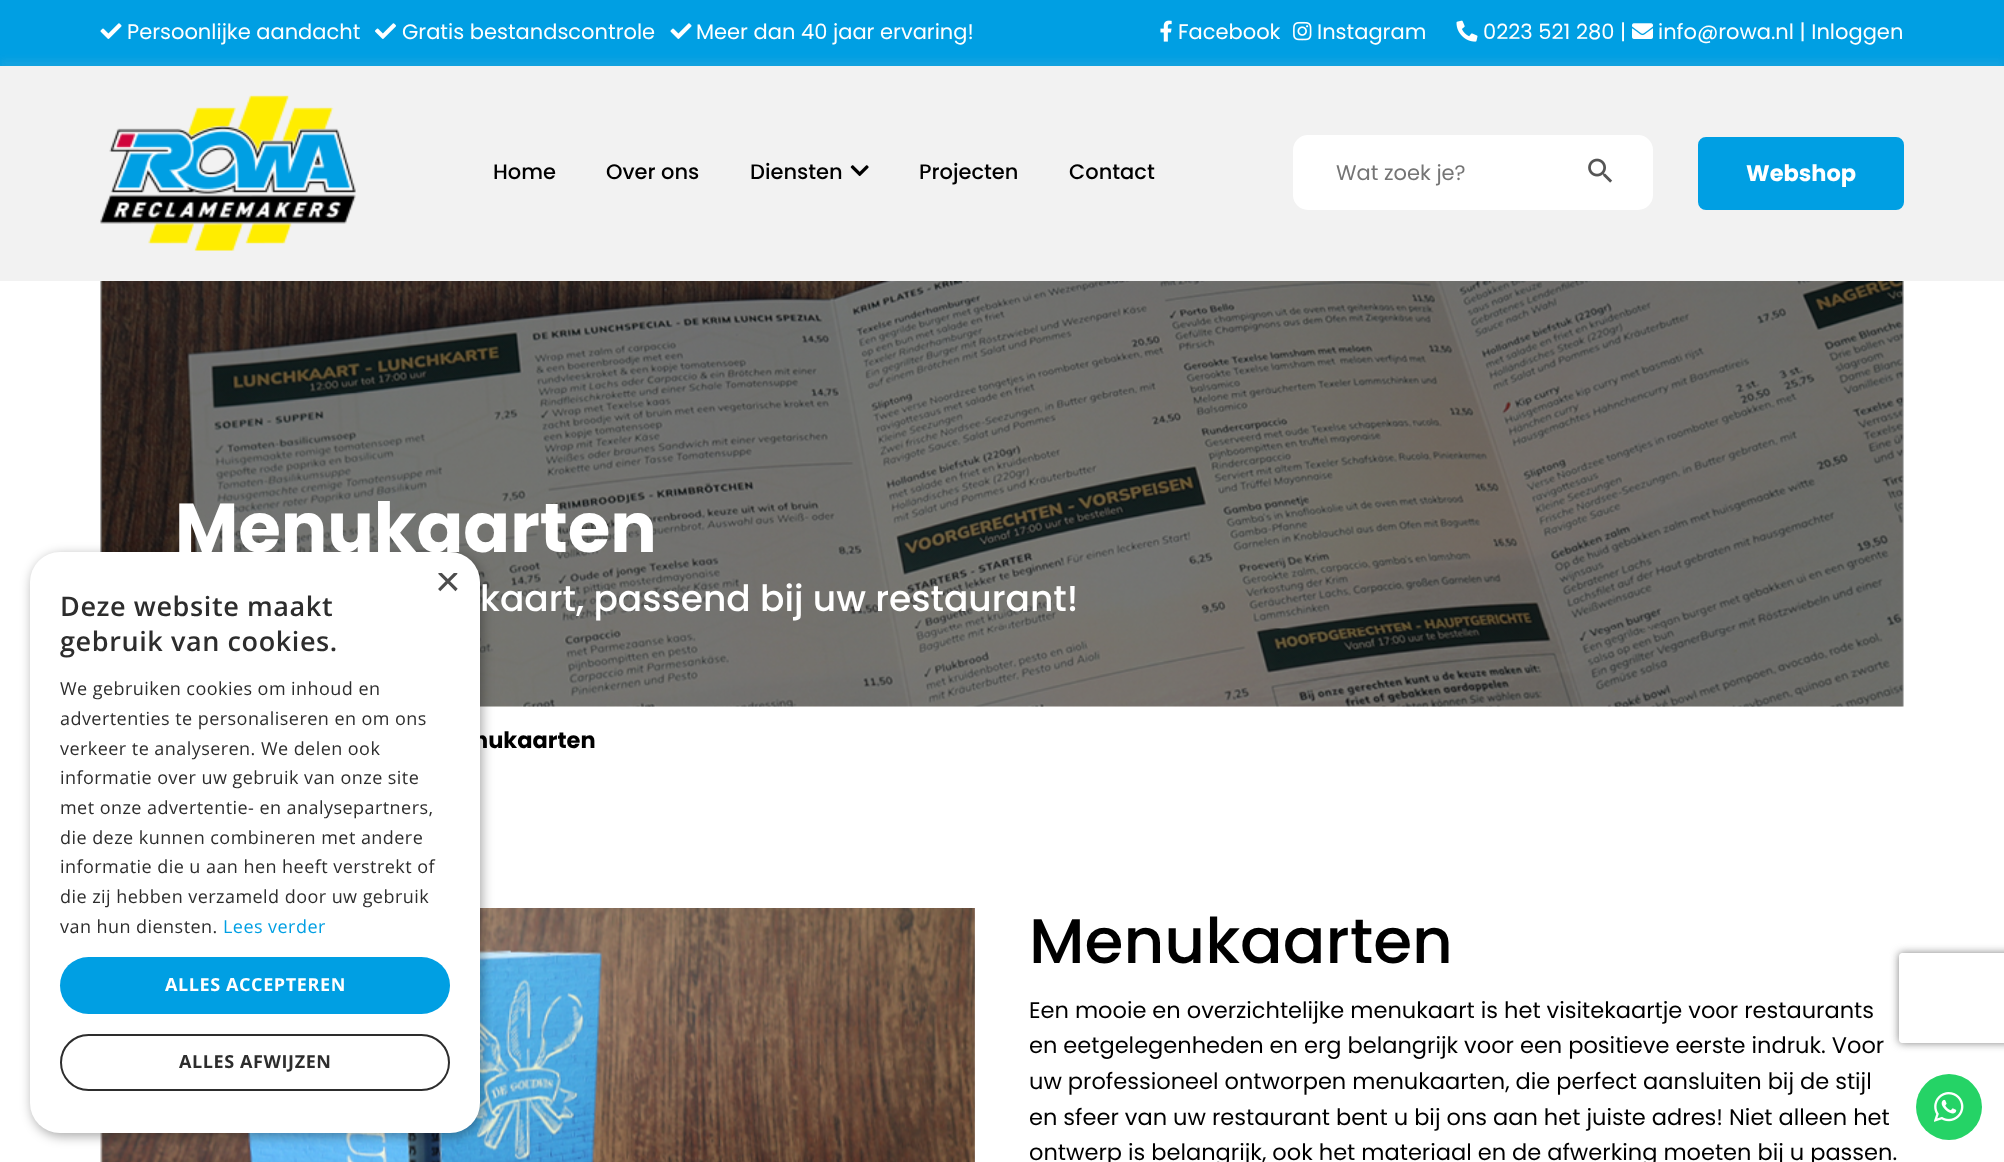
<!DOCTYPE html>
<meta charset="utf-8">
<style>body { margin: 0 } canvas { display: block }</style>
<canvas id="canvas" width="2004" height="1162"></canvas>
<img id="img1" src="img_01.png" hidden>
<img id="img2" src="img_02.png" hidden>
<img id="img3" src="img_03.png" hidden>
<img id="img4" src="img_04.png" hidden>
<img id="img5" src="img_05.png" hidden>
<img id="img6" src="img_06.png" hidden>
<img id="img7" src="img_10.png" hidden>
<img id="img8" src="img_07.png" hidden>
<img id="img9" src="img_08.png" hidden>
<img id="img10" src="img_09.png" hidden>
<img id="img11" src="img_11.png" hidden>
<img id="img12" src="img_12.png" hidden>
<img id="img13" src="img_13.png" hidden>
<script>
window.onload = function () {
	const canvas = document.getElementById("canvas");
	const ctx = canvas.getContext("2d");
	ctx.miterLimit = 4;
	ctx.fontKerning = "normal";
	function txt(s, x, y) {
		ctx.fillText(s, x, y);
	}
	function fill(x, y, w, h) {
		ctx.fillRect(x, y, w, h);
	}
	function round(x, y, w, h, r) {
		ctx.beginPath();
		ctx.roundRect(x, y, w, h, r);
		ctx.fill();
	}
	function img(id, x, y, w, h) {
		ctx.drawImage(document.getElementById(id), x, y, w, h);
	}

	ctx.fillStyle = "#FFFFFF";
	fill(0, 0, 2004, 1162);
	ctx.fillStyle = "#009FE3";
	fill(0, 0, 2004, 66);
	img("img1", 100, 23, 22, 16);
	img("img2", 375, 23, 21, 16);
	img("img1", 670, 23, 22, 16);
	img("img3", 1160, 20, 12, 22);
	img("img4", 1293, 21, 19, 20);
	img("img5", 1456, 20, 22, 22);
	img("img6", 1632, 23, 21, 16);
	img("img7", 100, 281, 1804, 426);
	ctx.fillStyle = "rgba(192, 192, 192, 0.1)";
	ctx.filter = "blur(3px)";
	ctx.beginPath();
	ctx.rect(0, 60, 2004, 215);
	ctx.fill();
	ctx.filter = "none";
	ctx.fillStyle = "#F2F2F2";
	fill(0, 66, 2004, 215);
	img("img8", 100, 95, 256, 156);
	img("img9", 850, 165, 19, 12);
	ctx.fillStyle = "#FFFFFF";
	ctx.beginPath();
	ctx.roundRect(1294.5, 136.5, 357, 72, 13.5);
	ctx.fill();
	ctx.strokeStyle = "#FFFFFF";
	ctx.lineWidth = 3;
	ctx.stroke();
	img("img10", 1588, 158, 25, 25);
	ctx.fillStyle = "#009FE3";
	ctx.beginPath();
	ctx.roundRect(1699.5, 138.5, 203, 70, 6.5);
	ctx.fill();
	ctx.strokeStyle = "#009FE3";
	ctx.stroke();
	img("img11", 100, 908, 875, 254);
	img("img12", 974, 908, 1, 254);
	ctx.save();
	ctx.beginPath();
	ctx.moveTo(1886, 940);
	ctx.lineTo(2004, 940);
	ctx.lineTo(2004, 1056);
	ctx.lineTo(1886, 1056);
	ctx.closePath();
	ctx.moveTo(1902, 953);
	ctx.lineTo(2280, 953);
	ctx.bezierCurveTo(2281.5, 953, 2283, 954.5, 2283, 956);
	ctx.lineTo(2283, 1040);
	ctx.bezierCurveTo(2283, 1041.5, 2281.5, 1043, 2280, 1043);
	ctx.lineTo(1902, 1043);
	ctx.bezierCurveTo(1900.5, 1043, 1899, 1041.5, 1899, 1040);
	ctx.lineTo(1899, 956);
	ctx.bezierCurveTo(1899, 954.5, 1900.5, 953, 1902, 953);
	ctx.closePath();
	ctx.clip("evenodd");
	ctx.fillStyle = "#808080";
	ctx.filter = "blur(4px)";
	ctx.beginPath();
	ctx.roundRect(1899, 953, 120, 90, 3);
	ctx.fill();
	ctx.filter = "none";
	ctx.restore();
	ctx.fillStyle = "rgba(0, 0, 0, 0.35)";
	ctx.filter = "blur(6px)";
	ctx.beginPath();
	ctx.roundRect(32, 555, 450, 581, 30);
	ctx.fill();
	ctx.filter = "none";
	ctx.fillStyle = "#25D366";
	ctx.beginPath();
	ctx.arc(1949, 1107, 33, 0, Math.PI * 2);
	ctx.fill();
	img("img13", 1934, 1092, 30, 30);
	ctx.font = "21px Poppins";
	ctx.fillStyle = "#FFFFFF";
	txt("Persoonlijke aandacht", 127, 39);
	txt("Gratis bestandscontrole", 402, 39);
	txt("Meer dan 40 jaar ervaring!", 696, 39);
	txt("Facebook", 1178, 39);
	txt("Instagram", 1317, 39);
	txt("0223 521 280 |", 1483, 39);
	txt("info@rowa.nl | Inloggen", 1658, 39);
	ctx.font = "500 21px Poppins";
	ctx.fillStyle = "#000000";
	txt("Home", 493, 179);
	txt("Over ons", 606, 179);
	txt("Diensten", 750, 179);
	txt("Projecten", 919, 179);
	txt("Contact", 1069, 179);
	ctx.font = "21px Poppins";
	ctx.fillStyle = "#757575";
	txt("Wat zoek je?", 1336, 180);
	ctx.font = "bold 22.5px Poppins";
	ctx.fillStyle = "#FFFFFF";
	txt("Webshop", 1746, 181);
	ctx.font = "bold 69px Poppins";
	txt("Menukaarten", 175, 552);
	ctx.font = "500 36px Poppins";
	txt("kaart, passend bij uw restaurant!", 480, 611);
	ctx.font = "bold 22.5px Poppins";
	ctx.fillStyle = "#000000";
	txt("nukaarten", 473, 748);
	ctx.font = "500 63px Poppins";
	txt("Menukaarten", 1029, 963);
	ctx.font = "22.5px Poppins";
	txt("Een mooie en overzichtelijke menukaart is het visitekaartje voor restaurants", 1029, 1018);
	txt("en eetgelegenheden en erg belangrijk voor een positieve eerste indruk. Voor", 1029, 1053);
	txt("uw professioneel ontworpen menukaarten, die perfect aansluiten bij de stijl", 1029, 1089);
	txt("en sfeer van uw restaurant bent u bij ons aan het juiste adres! Niet alleen het", 1029, 1125);
	txt("ontwerp is belangrijk, ook het materiaal en de afwerking moeten bij u passen.", 1029, 1160);
	ctx.fillStyle = "#FFFFFF";
	round(30, 552, 450, 581, 30);
	ctx.save();
	ctx.beginPath();
	ctx.rect(435, 573, 23, 23);
	ctx.clip();
	ctx.font = "44px Liberation Sans";
	ctx.fillStyle = "#4D4D4D";
	txt("×", 435, 596);
	ctx.restore();
	ctx.letterSpacing = "0.6px";
	ctx.font = "600 27px Open Sans";
	ctx.fillStyle = "#2D2D2D";
	txt("Deze website maakt", 60, 616);
	txt("gebruik van cookies.", 60, 651);
	ctx.letterSpacing = "0.45px";
	ctx.font = "18px Open Sans";
	txt("We gebruiken cookies om inhoud en", 60, 695);
	txt("advertenties te personaliseren en om ons", 60, 725);
	txt("verkeer te analyseren. We delen ook", 60, 755);
	txt("informatie over uw gebruik van onze site", 60, 784);
	txt("met onze advertentie- en analysepartners,", 60, 814);
	txt("die deze kunnen combineren met andere", 60, 844);
	txt("informatie die u aan hen heeft verstrekt of", 60, 873);
	txt("die zij hebben verzameld door uw gebruik", 60, 903);
	txt("van hun diensten.", 60, 933);
	ctx.fillStyle = "#009FE3";
	txt("Lees verder", 223, 933);
	round(60, 957, 390, 57, 28.5);
	ctx.letterSpacing = "0.6px";
	ctx.font = "bold 18px Open Sans";
	ctx.fillStyle = "#FFFFFF";
	txt("ALLES ACCEPTEREN", 165, 991);
	ctx.beginPath();
	ctx.roundRect(61, 1035, 388, 55, 27.5);
	ctx.strokeStyle = "#2D2D2D";
	ctx.lineWidth = 2;
	ctx.stroke();
	ctx.fillStyle = "#2D2D2D";
	txt("ALLES AFWIJZEN", 179, 1068);
};
</script>
